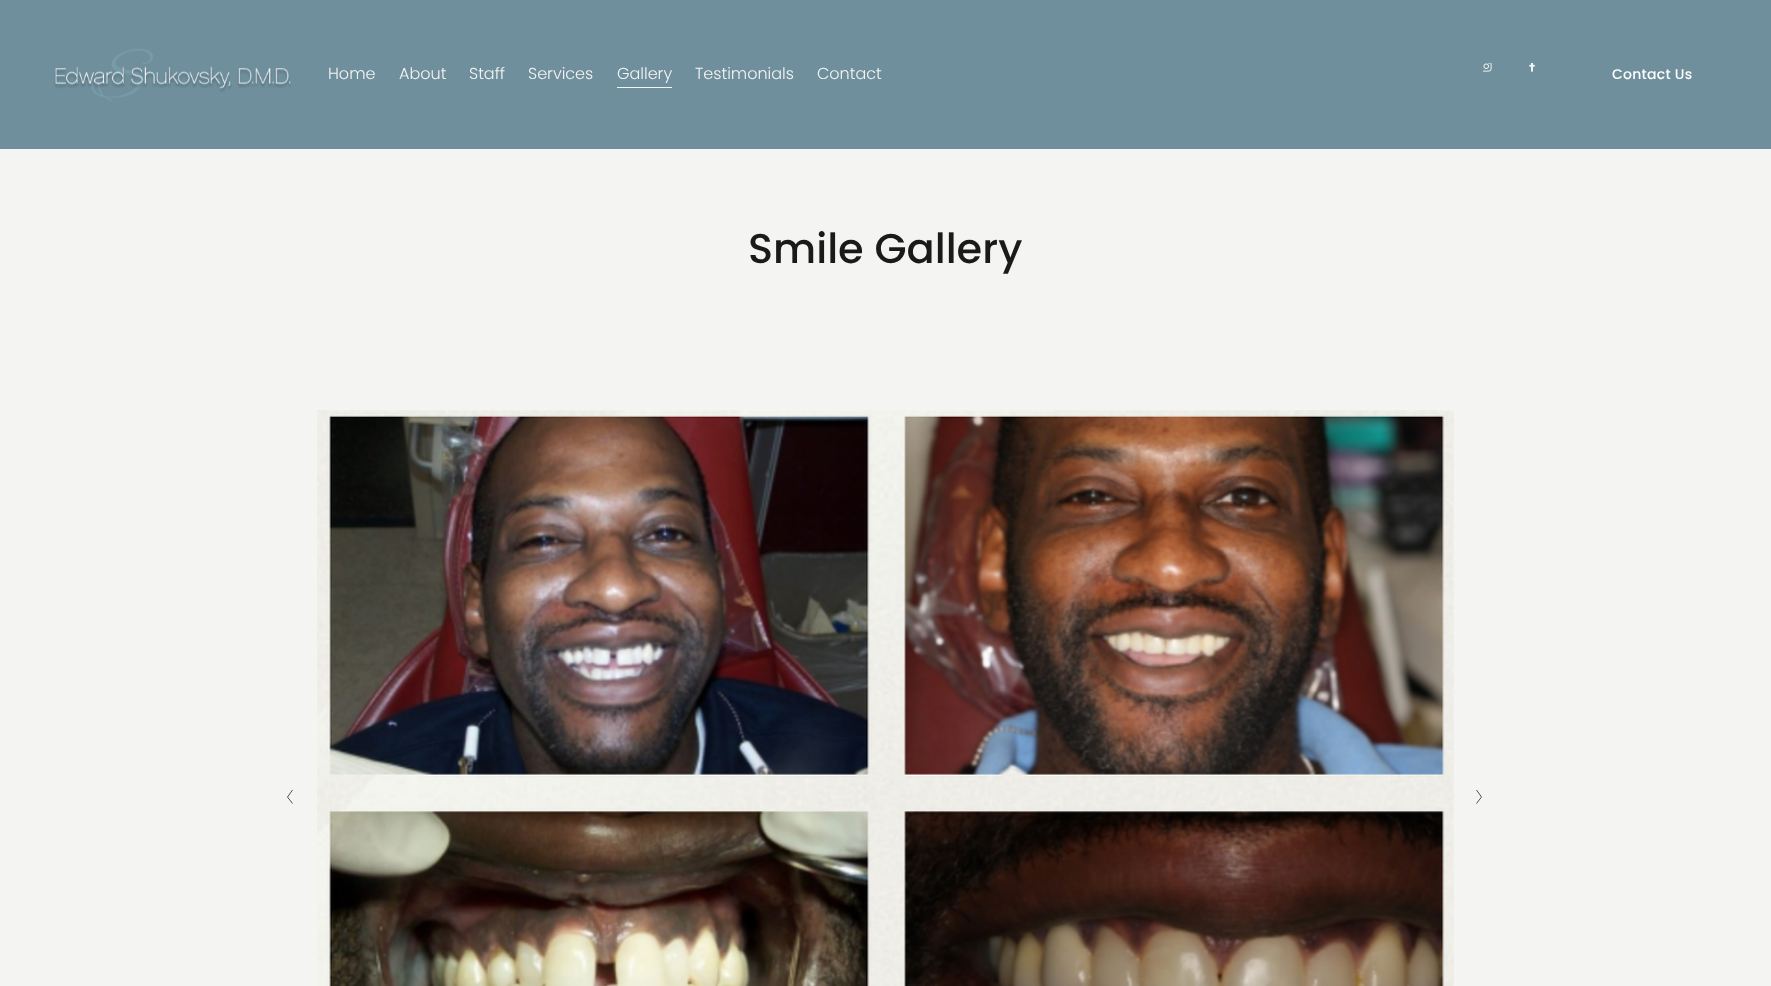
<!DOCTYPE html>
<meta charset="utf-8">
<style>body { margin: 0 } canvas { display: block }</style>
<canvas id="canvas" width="1771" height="986"></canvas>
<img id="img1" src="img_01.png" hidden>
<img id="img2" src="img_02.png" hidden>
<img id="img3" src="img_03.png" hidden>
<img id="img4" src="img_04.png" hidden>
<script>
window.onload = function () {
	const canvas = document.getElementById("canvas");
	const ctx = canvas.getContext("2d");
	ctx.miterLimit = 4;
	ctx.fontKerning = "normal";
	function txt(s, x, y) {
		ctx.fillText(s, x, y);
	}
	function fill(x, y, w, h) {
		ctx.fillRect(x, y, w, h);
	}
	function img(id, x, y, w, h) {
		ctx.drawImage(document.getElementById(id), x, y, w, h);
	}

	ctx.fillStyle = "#F4F4F3";
	fill(0, 0, 1771, 986);
	ctx.fillStyle = "#6F8F9D";
	fill(0, 0, 1771, 149);
	img("img1", 54, 48, 237, 53);
	ctx.fillStyle = "#F4F4F3";
	fill(617, 87, 55, 1);
	img("img2", 1483, 63, 9, 9);
	img("img3", 1529, 63, 6, 9);
	img("img4", 317, 410, 1137, 576);
	ctx.beginPath();
	ctx.moveTo(292.5, 803.5);
	ctx.lineTo(287.5, 797);
	ctx.lineTo(292.5, 790);
	ctx.strokeStyle = "#51514F";
	ctx.stroke();
	ctx.beginPath();
	ctx.moveTo(1476.5, 790);
	ctx.lineTo(1481.5, 797);
	ctx.lineTo(1476.5, 803.5);
	ctx.stroke();
	ctx.font = "300 16px Poppins";
	txt("Home", 328, 79);
	txt("About", 399, 79);
	txt("Staff", 469, 79);
	txt("Services", 528, 79);
	txt("Gallery", 617, 79);
	txt("Testimonials", 695, 79);
	txt("Contact", 817, 79);
	ctx.letterSpacing = "0.25px";
	ctx.font = "500 14px Poppins";
	ctx.fillStyle = "#FFFFFF";
	txt("Contact Us", 1612, 79);
	ctx.letterSpacing = "0px";
	ctx.font = "500 41.5px Poppins";
	ctx.fillStyle = "#1A1B18";
	txt("Smile Gallery", 748, 263);
};
</script>
